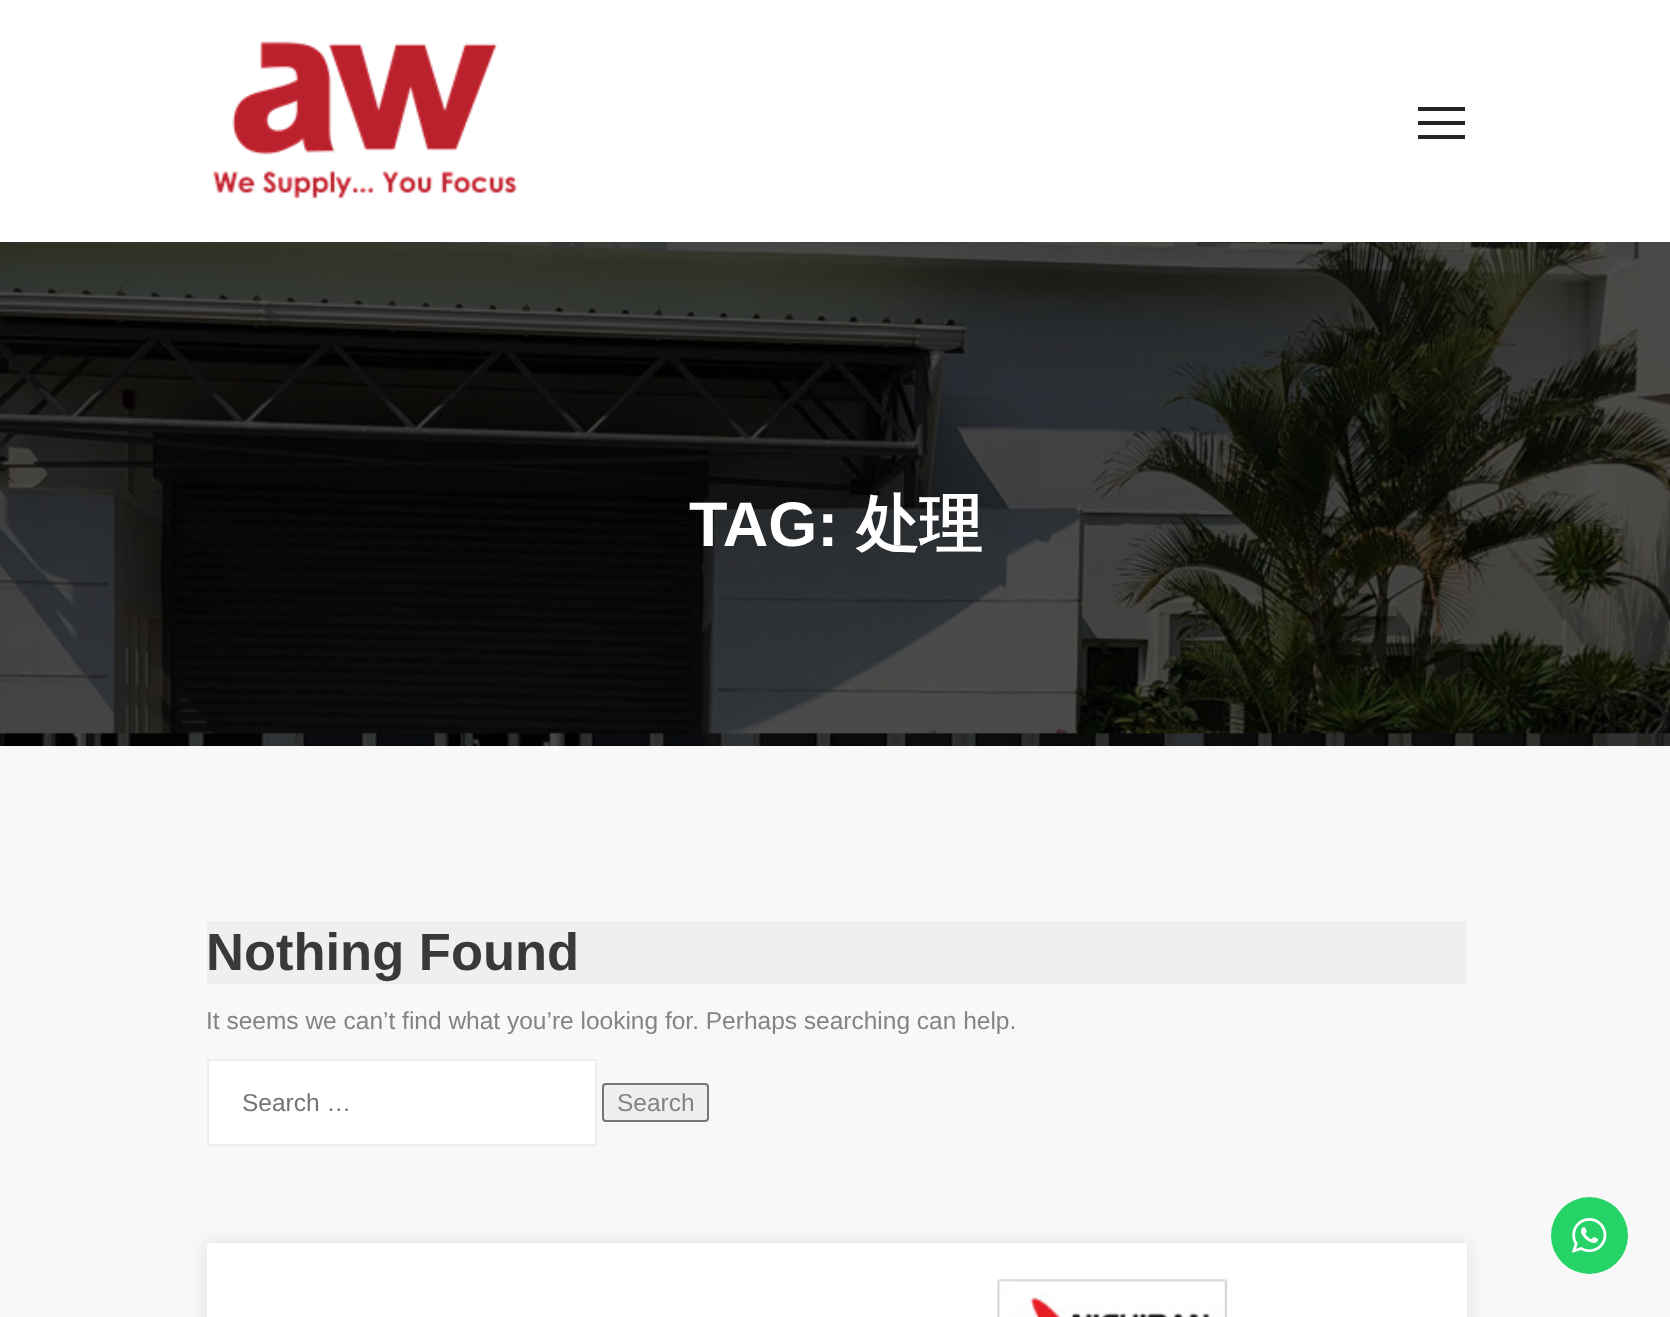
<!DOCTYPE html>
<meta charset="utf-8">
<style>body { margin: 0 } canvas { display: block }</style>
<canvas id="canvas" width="1670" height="1317"></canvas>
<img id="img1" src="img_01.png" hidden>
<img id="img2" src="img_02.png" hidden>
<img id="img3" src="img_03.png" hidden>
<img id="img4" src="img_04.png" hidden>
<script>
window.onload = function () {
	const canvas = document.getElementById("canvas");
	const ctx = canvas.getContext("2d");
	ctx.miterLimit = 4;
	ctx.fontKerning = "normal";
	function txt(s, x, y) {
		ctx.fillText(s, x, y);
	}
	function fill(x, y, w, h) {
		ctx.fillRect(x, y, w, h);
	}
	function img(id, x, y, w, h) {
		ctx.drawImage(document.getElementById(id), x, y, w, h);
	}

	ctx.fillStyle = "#FFFFFF";
	fill(0, 0, 1670, 1317);
	img("img1", 213, 41, 304, 158);
	ctx.fillStyle = "#252525";
	fill(1418, 121, 47, 4);
	fill(1418, 107, 47, 4);
	fill(1418, 135, 47, 4);
	img("img2", 0, 242, 1670, 504);
	ctx.fillStyle = "#F8F8F8";
	fill(0, 746, 1670, 571);
	ctx.fillStyle = "#EFEFEF";
	fill(207, 921, 1260, 63);
	ctx.fillStyle = "#FFFFFF";
	ctx.beginPath();
	ctx.rect(208, 1060, 388, 85);
	ctx.fill();
	ctx.strokeStyle = "#EFEFEF";
	ctx.lineWidth = 2;
	ctx.stroke();
	ctx.fillStyle = "#EFEFEF";
	ctx.beginPath();
	ctx.roundRect(603, 1084, 105, 37, 3);
	ctx.fill();
	ctx.strokeStyle = "#767676";
	ctx.stroke();
	ctx.fillStyle = "rgba(0, 0, 0, 0.1)";
	ctx.filter = "blur(9px)";
	ctx.beginPath();
	ctx.rect(207, 1243, 1260, 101);
	ctx.fill();
	ctx.filter = "none";
	ctx.fillStyle = "#FFFFFF";
	fill(207, 1243, 1260, 74);
	img("img3", 997, 1279, 230, 38);
	ctx.fillStyle = "#25D366";
	ctx.beginPath();
	ctx.arc(1589.5, 1235.5, 38.5, 0, Math.PI * 2);
	ctx.fill();
	img("img4", 1572, 1218, 35, 35);
	ctx.font = "bold 63px Liberation Sans";
	ctx.fillStyle = "#FFFFFF";
	txt("TAG:", 689, 546);
	ctx.font = "bold 63px WenQuanYi Zen Hei";
	txt("处理", 856, 546);
	ctx.font = "bold 52.5px Liberation Sans";
	ctx.fillStyle = "#393939";
	txt("Nothing Found", 206, 970);
	ctx.font = "24.5px Liberation Sans";
	ctx.fillStyle = "#848484";
	txt("It seems we can’t find what you’re looking for. Perhaps searching can help.", 206, 1029);
	ctx.fillStyle = "#757575";
	txt("Search …", 242, 1111);
	ctx.fillStyle = "#848484";
	txt("Search", 617, 1111);
};
</script>
